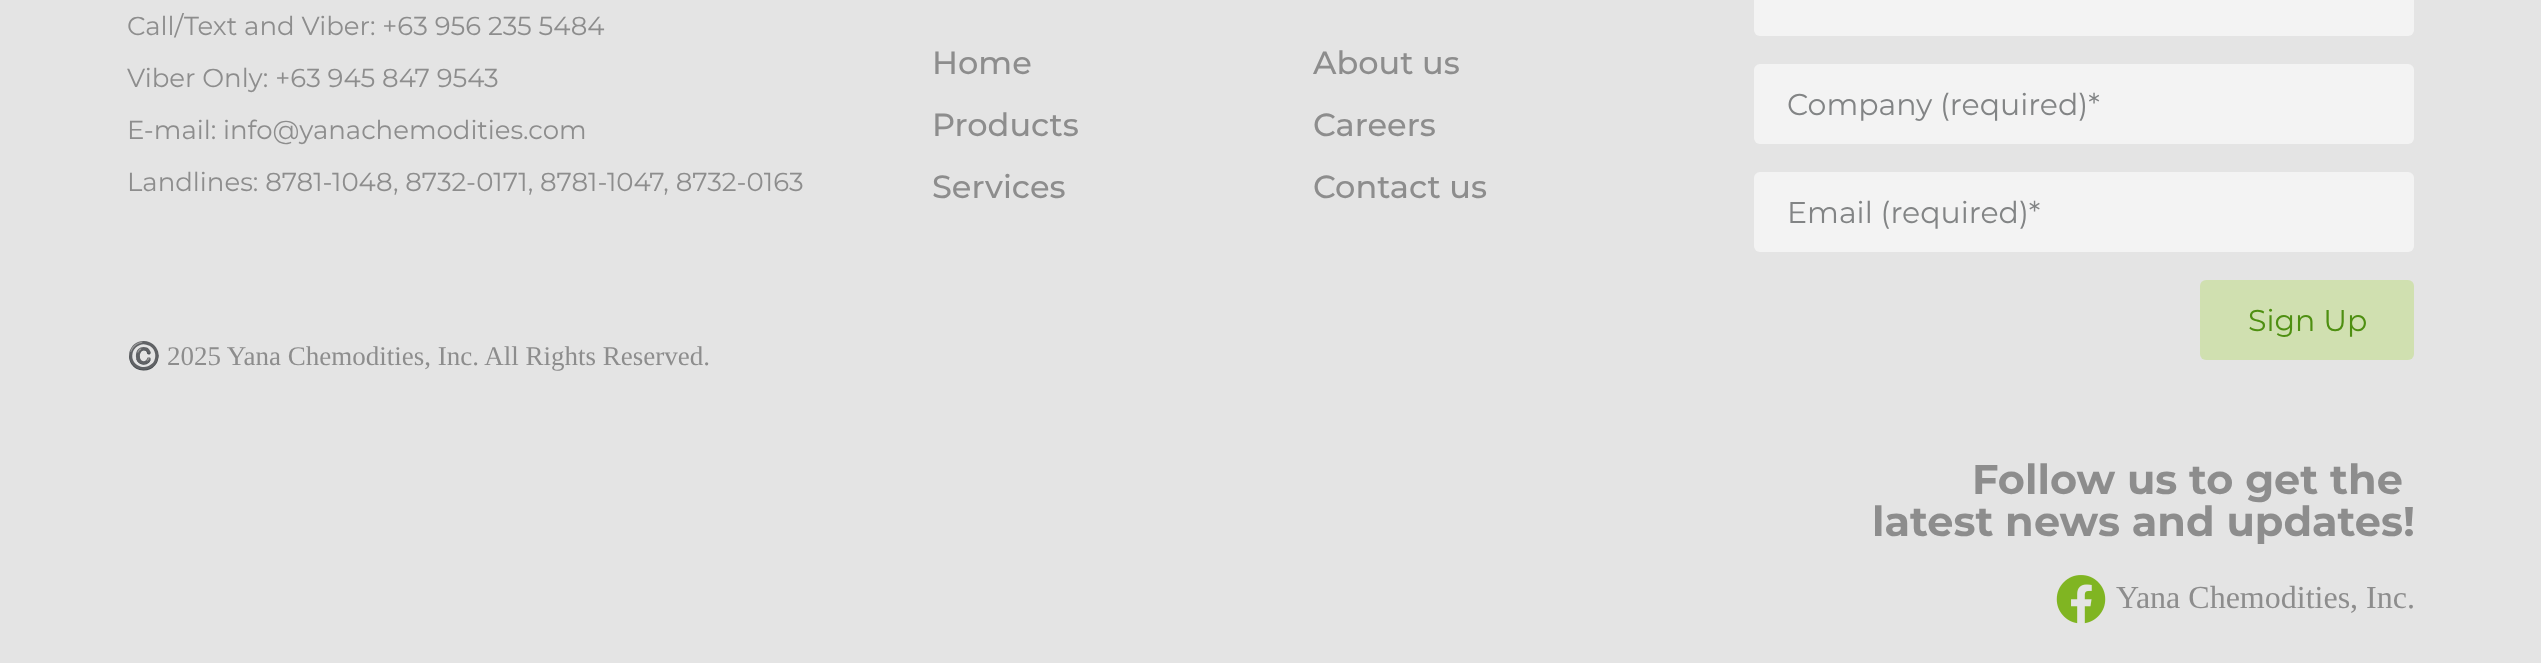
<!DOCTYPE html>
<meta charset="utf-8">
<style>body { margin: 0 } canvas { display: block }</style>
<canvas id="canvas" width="2541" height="663"></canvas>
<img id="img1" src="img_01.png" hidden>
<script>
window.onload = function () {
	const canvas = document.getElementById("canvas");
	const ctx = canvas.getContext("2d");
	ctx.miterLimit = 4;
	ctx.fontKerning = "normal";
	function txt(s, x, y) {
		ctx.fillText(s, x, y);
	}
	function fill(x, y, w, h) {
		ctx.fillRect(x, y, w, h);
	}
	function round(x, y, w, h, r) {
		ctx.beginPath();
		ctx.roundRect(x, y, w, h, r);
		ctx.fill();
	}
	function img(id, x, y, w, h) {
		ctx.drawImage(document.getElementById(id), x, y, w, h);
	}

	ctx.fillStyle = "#E4E4E4";
	fill(0, 0, 2541, 663);
	ctx.fillStyle = "#F3F3F3";
	round(1754, -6, 660, 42, 6);
	round(1754, 64, 660, 80, 6);
	round(1754, 172, 660, 80, 6);
	ctx.fillStyle = "#D0E0B0";
	round(2200, 280, 214, 80, 6);
	img("img1", 2056, 575, 50, 49);
	ctx.font = "26px Montserrat";
	ctx.fillStyle = "#8D8D8D";
	txt("Call/Text and Viber: +63 956 235 5484", 127, 35);
	txt("Viber Only: +63 945 847 9543", 127, 87);
	txt("E-mail: info@yanachemodities.com", 127, 139);
	txt("Landlines: 8781-1048, 8732-0171, 8781-1047, 8732-0163", 127, 191);
	ctx.font = "27px Noto Color Emoji";
	txt("©️", 127, 365);
	ctx.font = "27px Liberation Serif";
	txt("2025 Yana Chemodities, Inc. All Rights Reserved.", 167, 365);
	ctx.font = "500 32px Montserrat";
	txt("Home", 932, 74);
	txt("Products", 932, 136);
	txt("Services", 932, 198);
	txt("About us", 1313, 74);
	txt("Careers", 1313, 136);
	txt("Contact us", 1313, 198);
	ctx.font = "30px Montserrat";
	ctx.fillStyle = "#828485";
	txt("Company (required)*", 1787, 115);
	txt("Email (required)*", 1787, 223);
	ctx.fillStyle = "#4E8F11";
	txt("Sign Up", 2248, 331);
	ctx.font = "bold 41.4px Montserrat";
	ctx.fillStyle = "#8D8D8D";
	txt("Follow us to get the", 1972, 494);
	txt("latest news and updates!", 1872, 536);
	ctx.font = "32px Liberation Serif";
	txt("Yana Chemodities, Inc.", 2116, 608);
};
</script>
